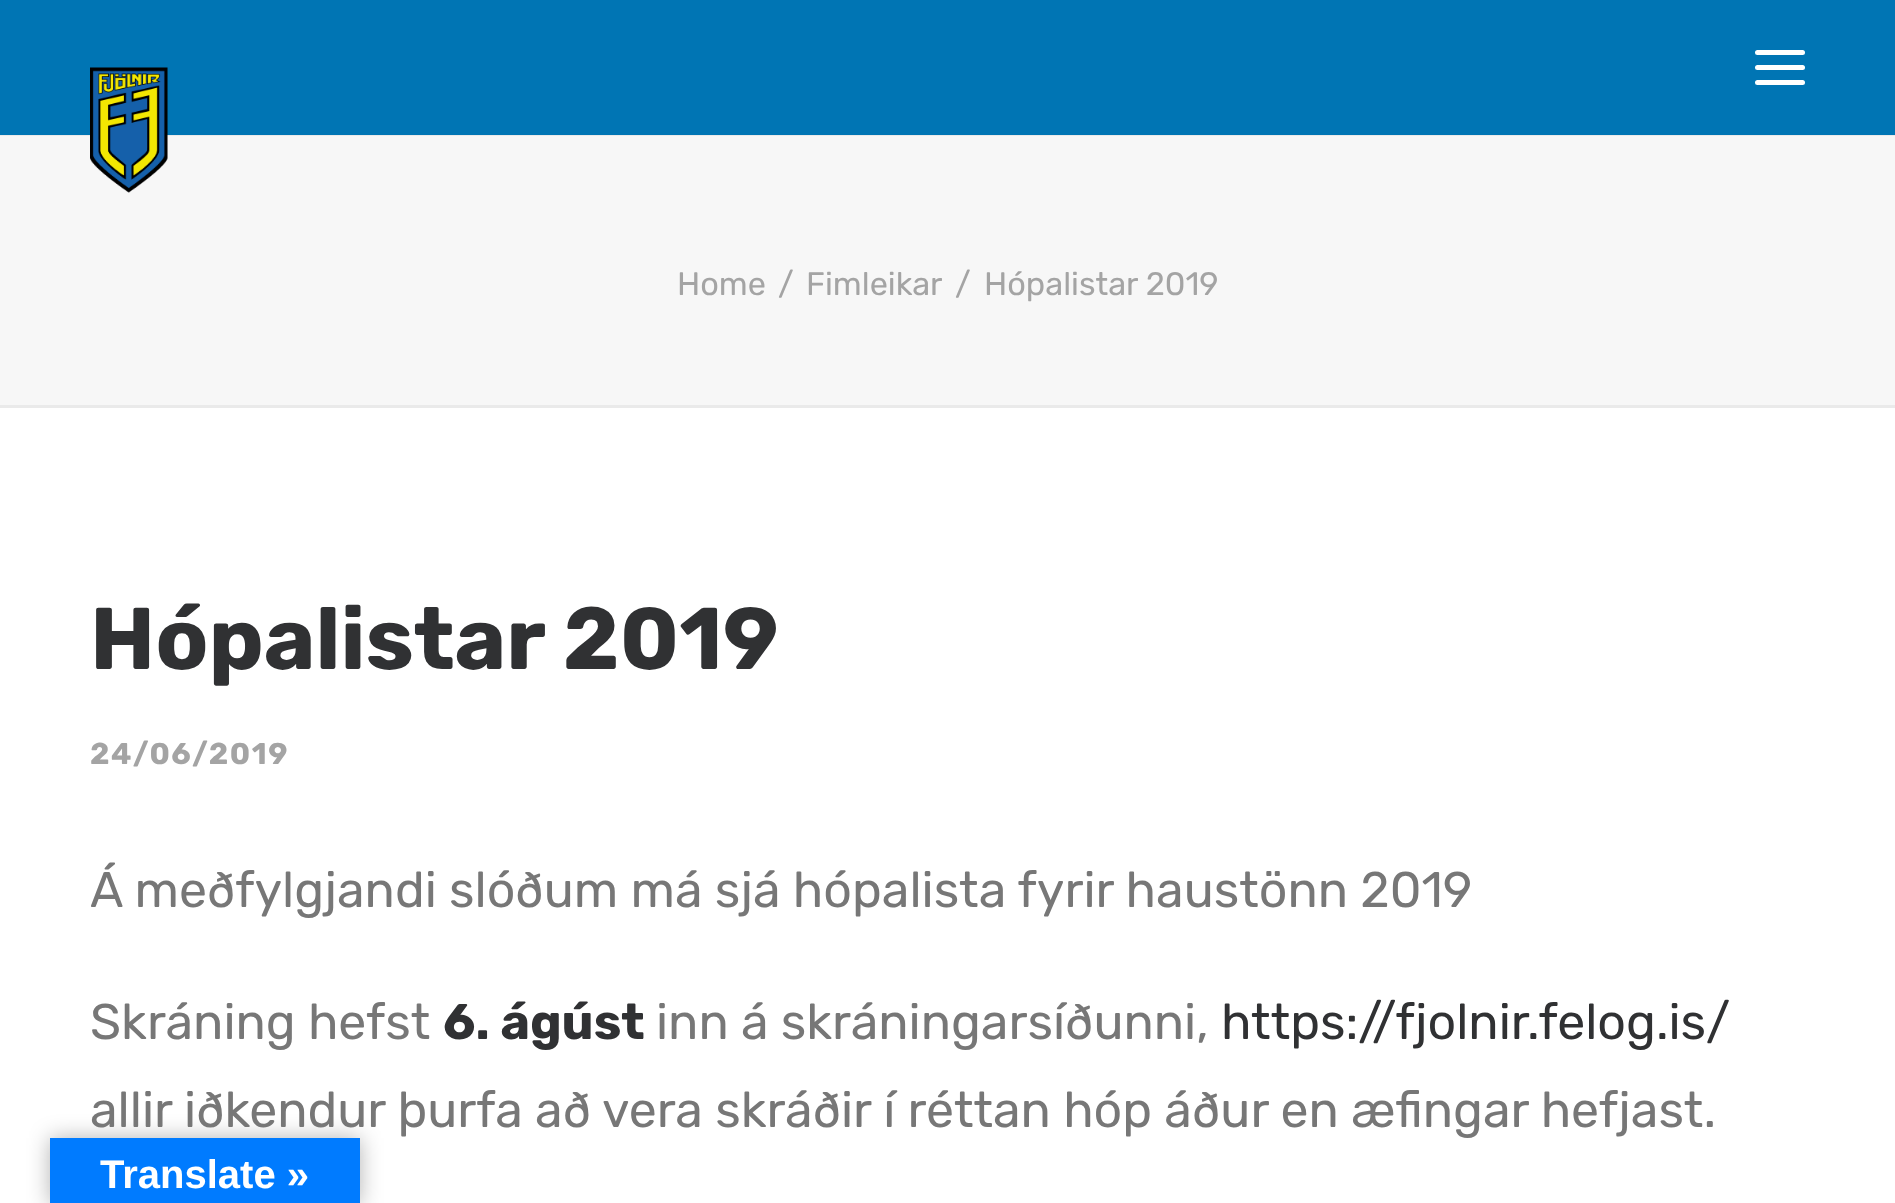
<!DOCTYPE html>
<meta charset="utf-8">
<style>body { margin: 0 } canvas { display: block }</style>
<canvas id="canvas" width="1895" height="1203"></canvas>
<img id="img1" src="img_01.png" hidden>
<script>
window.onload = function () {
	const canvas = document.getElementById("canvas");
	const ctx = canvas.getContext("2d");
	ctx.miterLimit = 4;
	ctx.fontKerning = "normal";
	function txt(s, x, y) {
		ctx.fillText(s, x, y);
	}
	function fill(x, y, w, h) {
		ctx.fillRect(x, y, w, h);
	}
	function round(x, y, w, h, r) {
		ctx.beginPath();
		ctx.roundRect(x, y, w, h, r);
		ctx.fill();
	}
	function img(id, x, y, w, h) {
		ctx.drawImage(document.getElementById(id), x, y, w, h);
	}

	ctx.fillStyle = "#FFFFFF";
	fill(0, 0, 1895, 1203);
	ctx.fillStyle = "#0075B4";
	fill(0, 0, 1895, 135);
	ctx.fillStyle = "#F7F7F7";
	fill(0, 136, 1895, 269);
	ctx.fillStyle = "#EAEAEA";
	fill(0, 135, 1895, 1);
	img("img1", 90, 67, 78, 126);
	ctx.fillStyle = "#FFFFFF";
	round(1755, 65, 50, 5, 2.5);
	round(1755, 50, 50, 5, 2.5);
	round(1755, 80, 50, 5, 2.5);
	ctx.fillStyle = "#EAEAEA";
	fill(0, 405, 1895, 3);
	ctx.fillStyle = "rgba(0, 0, 0, 0.3)";
	ctx.filter = "blur(11px)";
	ctx.beginPath();
	ctx.rect(50, 1138, 310, 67);
	ctx.fill();
	ctx.filter = "none";
	ctx.fillStyle = "#007BFF";
	fill(50, 1138, 310, 65);
	ctx.font = "32.5px Rubik";
	ctx.fillStyle = "#A4A4A4";
	txt("Home", 677, 295);
	txt("/", 778, 295);
	txt("Fimleikar", 806, 295);
	txt("/", 955, 295);
	txt("Hópalistar 2019", 984, 295);
	ctx.font = "bold 87.5px Rubik";
	ctx.fillStyle = "#303133";
	txt("Hópalistar 2019", 90, 669);
	ctx.letterSpacing = "1.5px";
	ctx.font = "bold 30px Rubik";
	ctx.fillStyle = "#A4A4A4";
	txt("24/06/2019", 90, 764);
	ctx.letterSpacing = "0px";
	ctx.font = "50px Rubik";
	ctx.fillStyle = "#777777";
	txt("Á meðfylgjandi slóðum má sjá hópalista fyrir haustönn 2019", 90, 907);
	txt("Skráning hefst", 90, 1039);
	ctx.font = "bold 50px Rubik";
	ctx.fillStyle = "#303133";
	txt("6. ágúst", 443, 1039);
	ctx.font = "50px Rubik";
	ctx.fillStyle = "#777777";
	txt("inn á skráningarsíðunni,", 656, 1039);
	ctx.fillStyle = "#303133";
	txt("https://fjolnir.felog.is/", 1221, 1039);
	ctx.fillStyle = "#777777";
	txt("allir iðkendur þurfa að vera skráðir í réttan hóp áður en æfingar hefjast.", 90, 1127);
	ctx.font = "bold 40px Liberation Sans";
	ctx.fillStyle = "#FFFFFF";
	txt("Translate »", 100, 1188);
};
</script>
